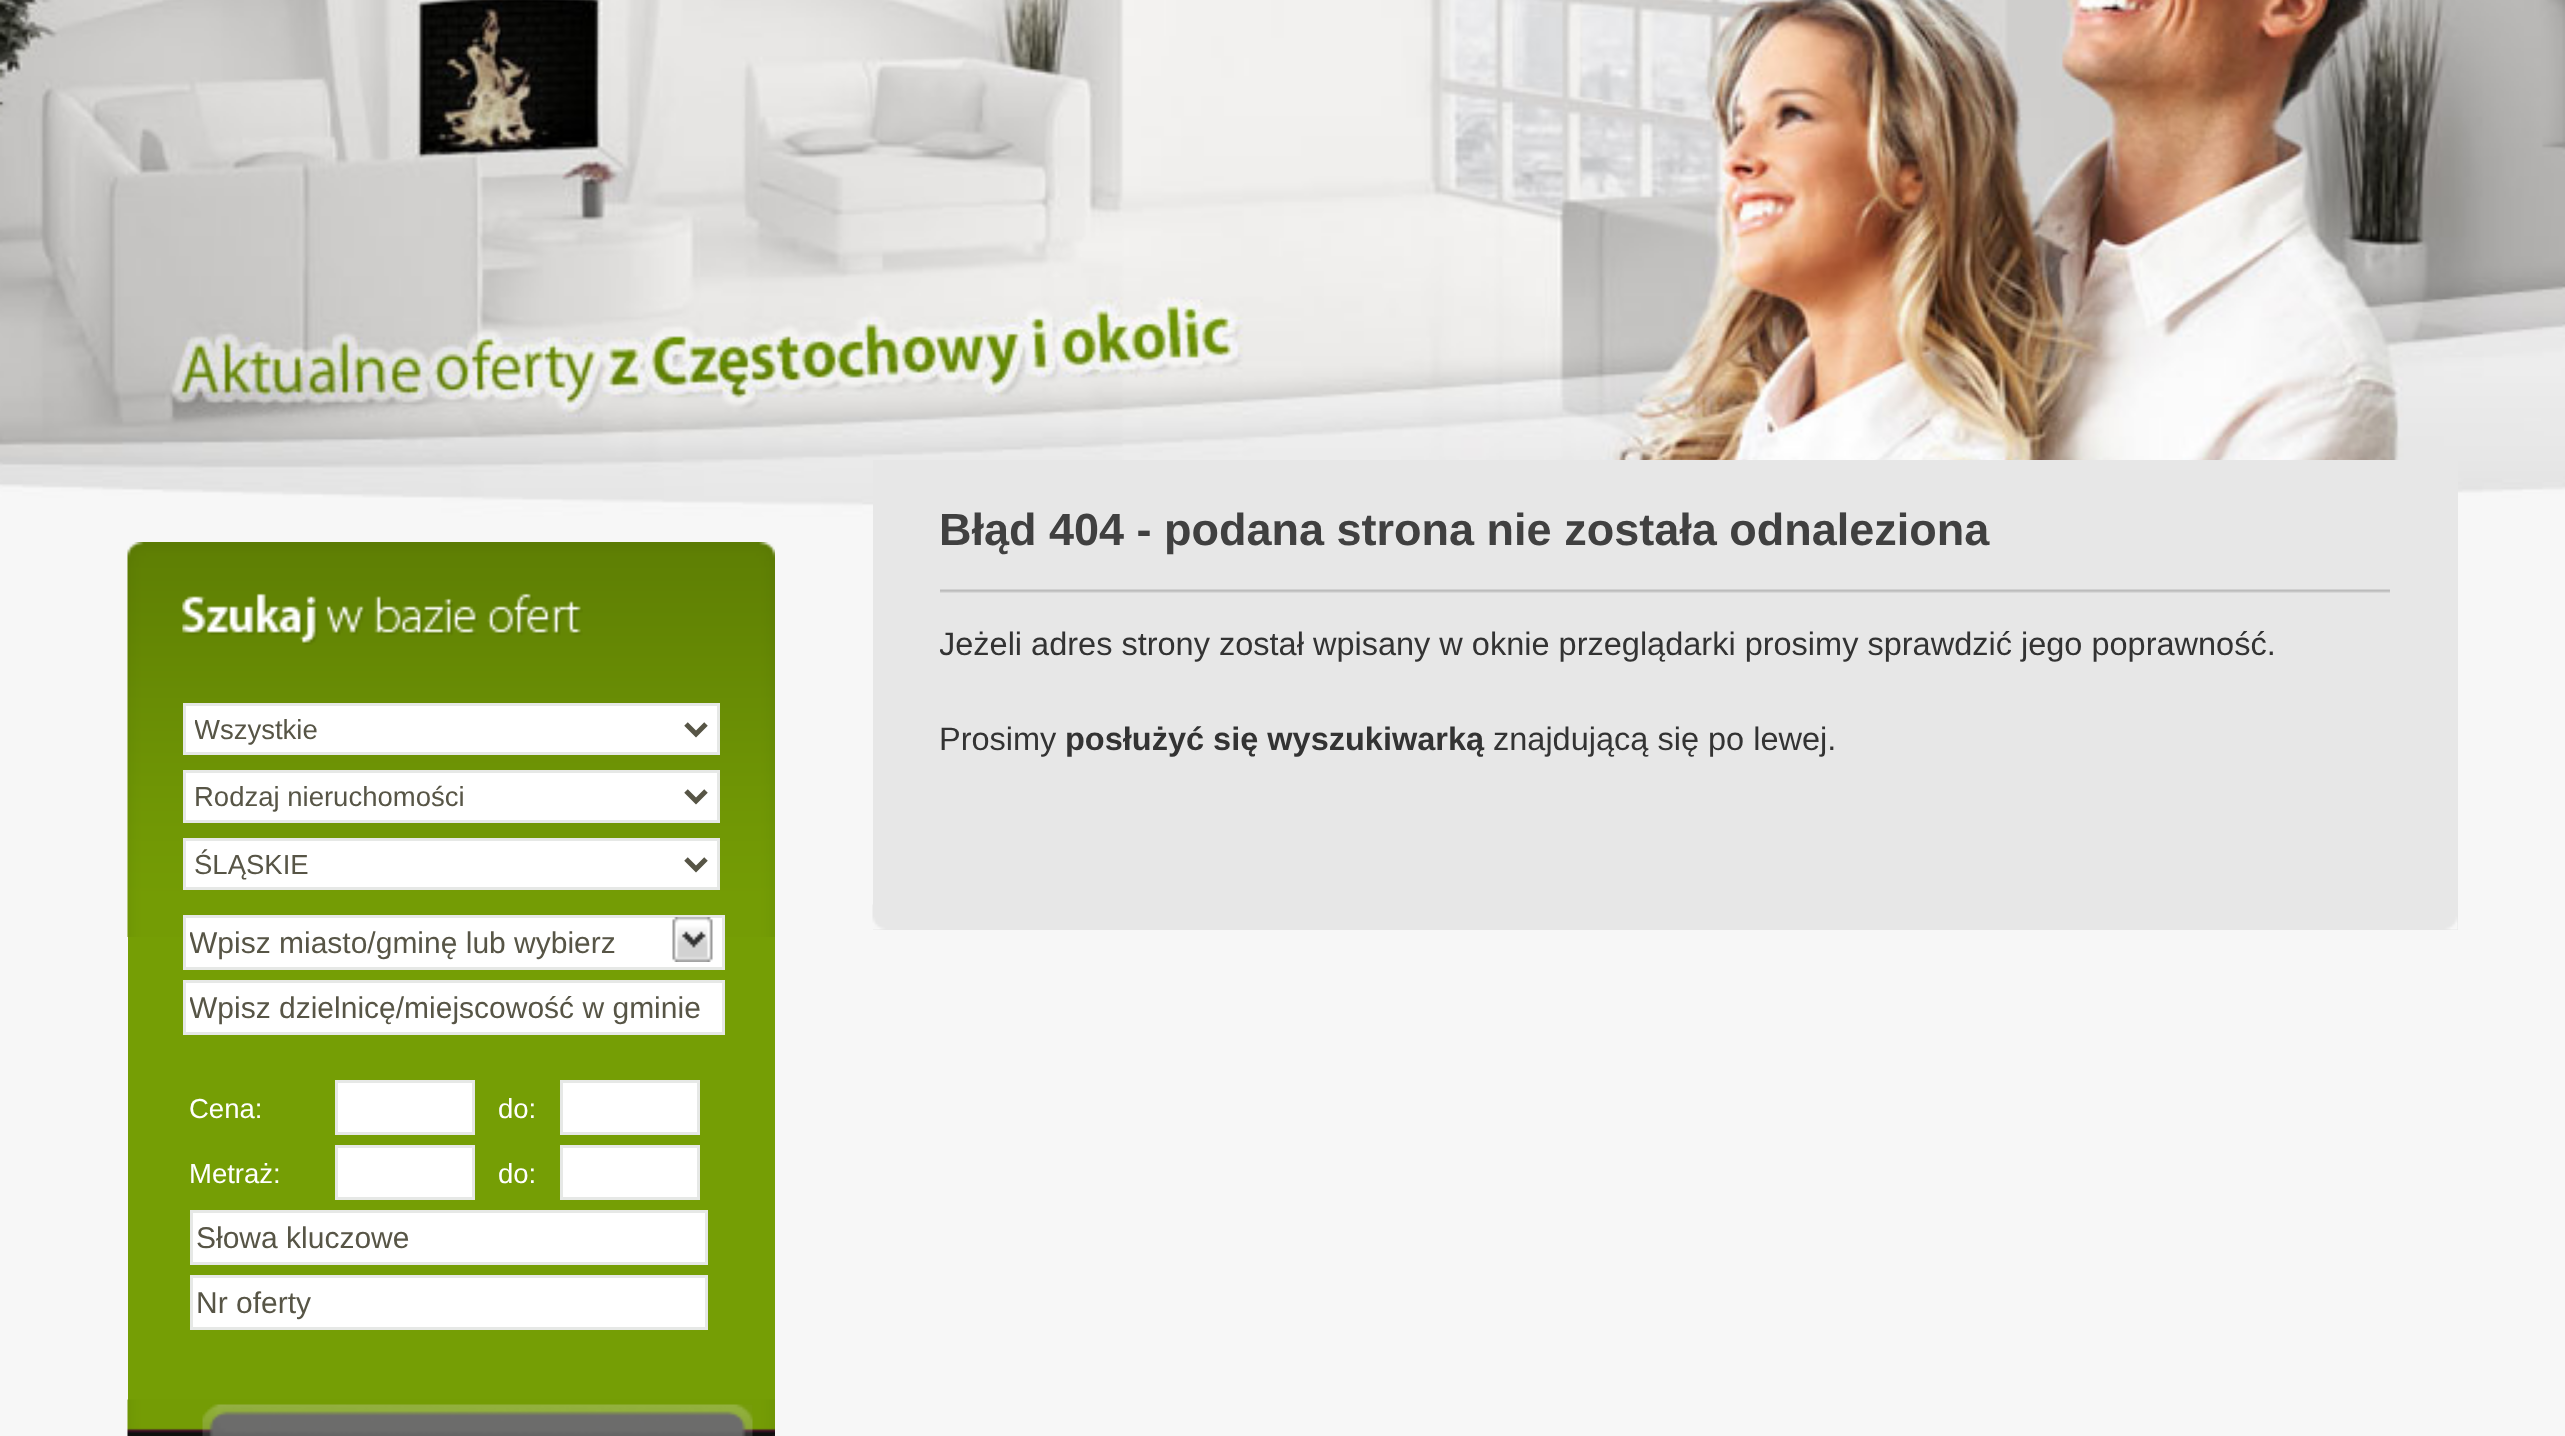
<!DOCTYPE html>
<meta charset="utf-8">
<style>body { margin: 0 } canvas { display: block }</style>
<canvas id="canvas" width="2565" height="1436"></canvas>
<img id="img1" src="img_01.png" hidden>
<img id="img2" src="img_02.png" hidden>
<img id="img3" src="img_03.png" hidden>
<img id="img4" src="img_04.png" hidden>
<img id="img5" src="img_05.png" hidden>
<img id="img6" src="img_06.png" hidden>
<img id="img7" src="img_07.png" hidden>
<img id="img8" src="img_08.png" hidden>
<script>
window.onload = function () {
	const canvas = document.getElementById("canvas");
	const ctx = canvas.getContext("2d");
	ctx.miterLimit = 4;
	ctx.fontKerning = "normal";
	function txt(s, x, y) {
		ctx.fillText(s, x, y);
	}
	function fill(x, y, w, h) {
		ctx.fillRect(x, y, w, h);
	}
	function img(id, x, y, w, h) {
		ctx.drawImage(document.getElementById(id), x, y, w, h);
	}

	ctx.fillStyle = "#F7F7F7";
	fill(0, 0, 2565, 1436);
	img("img1", 0, 0, 2565, 517);
	ctx.fillStyle = "#E7E7E7";
	fill(873, 460, 1585, 470);
	img("img2", 940, 589, 1450, 4);
	img("img3", 872, 904, 1586, 26);
	ctx.fillStyle = "#759E05";
	fill(128, 937, 647, 463);
	img("img4", 127, 542, 648, 395);
	img("img5", 182, 593, 401, 52);
	ctx.fillStyle = "#FFFFFF";
	ctx.beginPath();
	ctx.rect(184.5, 704.5, 534, 49);
	ctx.fill();
	ctx.strokeStyle = "#E6E8E6";
	ctx.lineWidth = 3;
	ctx.stroke();
	ctx.beginPath();
	ctx.moveTo(686, 724);
	ctx.lineTo(696, 734);
	ctx.lineTo(706, 724);
	ctx.strokeStyle = "#575546";
	ctx.lineWidth = 5;
	ctx.stroke();
	ctx.beginPath();
	ctx.rect(184.5, 771.5, 534, 50);
	ctx.fill();
	ctx.strokeStyle = "#E6E8E6";
	ctx.lineWidth = 3;
	ctx.stroke();
	ctx.beginPath();
	ctx.moveTo(686, 791);
	ctx.lineTo(696, 801);
	ctx.lineTo(706, 791);
	ctx.strokeStyle = "#575546";
	ctx.lineWidth = 5;
	ctx.stroke();
	ctx.beginPath();
	ctx.rect(184.5, 839.5, 534, 49);
	ctx.fill();
	ctx.strokeStyle = "#E6E8E6";
	ctx.lineWidth = 3;
	ctx.stroke();
	ctx.beginPath();
	ctx.moveTo(686, 859);
	ctx.lineTo(696, 869);
	ctx.lineTo(706, 859);
	ctx.strokeStyle = "#575546";
	ctx.lineWidth = 5;
	ctx.stroke();
	ctx.beginPath();
	ctx.rect(184.5, 916.5, 539, 52);
	ctx.fill();
	ctx.strokeStyle = "#E6E8E6";
	ctx.lineWidth = 3;
	ctx.stroke();
	img("img6", 672, 917, 41, 45);
	ctx.beginPath();
	ctx.rect(184.5, 981.5, 539, 52);
	ctx.fill();
	ctx.stroke();
	ctx.beginPath();
	ctx.rect(336.5, 1081.5, 137, 52);
	ctx.fill();
	ctx.stroke();
	ctx.beginPath();
	ctx.rect(561.5, 1081.5, 137, 52);
	ctx.fill();
	ctx.stroke();
	ctx.beginPath();
	ctx.rect(336.5, 1146.5, 137, 52);
	ctx.fill();
	ctx.stroke();
	ctx.beginPath();
	ctx.rect(561.5, 1146.5, 137, 52);
	ctx.fill();
	ctx.stroke();
	ctx.beginPath();
	ctx.rect(191.5, 1211.5, 515, 52);
	ctx.fill();
	ctx.stroke();
	ctx.beginPath();
	ctx.rect(191.5, 1276.5, 515, 52);
	ctx.fill();
	ctx.stroke();
	img("img7", 127, 1399, 648, 37);
	img("img8", 202, 1404, 551, 32);
	ctx.font = "bold 45px Liberation Sans";
	ctx.fillStyle = "#404040";
	txt("Błąd 404 - podana strona nie została odnaleziona", 939, 545);
	ctx.save();
	ctx.beginPath();
	ctx.rect(940, 460, 1450, 445);
	ctx.clip();
	ctx.font = "32.5px Liberation Sans";
	ctx.fillStyle = "#333333";
	txt("Jeżeli adres strony został wpisany w oknie przeglądarki prosimy sprawdzić jego poprawność.", 939, 655);
	ctx.restore();
	ctx.font = "32.5px Liberation Sans";
	ctx.fillStyle = "#333333";
	txt("Prosimy", 939, 750);
	ctx.font = "bold 32.5px Liberation Sans";
	txt("posłużyć się wyszukiwarką", 1065, 750);
	ctx.font = "32.5px Liberation Sans";
	txt("znajdującą się po lewej.", 1493, 750);
	ctx.save();
	ctx.beginPath();
	ctx.rect(195, 713, 478, 35);
	ctx.clip();
	ctx.font = "27.5px Liberation Sans";
	ctx.fillStyle = "#575546";
	txt("Wszystkie", 194, 739);
	ctx.restore();
	ctx.font = "27.5px Liberation Sans";
	ctx.fillStyle = "#575546";
	txt("Rodzaj nieruchomości", 194, 806);
	txt("ŚLĄSKIE", 194, 874);
	ctx.save();
	ctx.beginPath();
	ctx.rect(190, 925, 528, 35);
	ctx.clip();
	ctx.font = "30px Liberation Sans";
	txt("Wpisz miasto/gminę lub wybierz", 189, 953);
	ctx.restore();
	ctx.save();
	ctx.beginPath();
	ctx.rect(190, 990, 528, 35);
	ctx.clip();
	ctx.font = "30px Liberation Sans";
	txt("Wpisz dzielnicę/miejscowość w gminie", 189, 1018);
	ctx.restore();
	ctx.fillStyle = "#FFFFFF";
	txt("Cena:", 189, 1118);
	txt("do:", 498, 1118);
	txt("Metraż:", 189, 1183);
	txt("do:", 498, 1183);
	ctx.font = "30px Liberation Sans";
	ctx.fillStyle = "#575546";
	txt("Słowa kluczowe", 196, 1248);
	txt("Nr oferty", 196, 1313);
};
</script>
